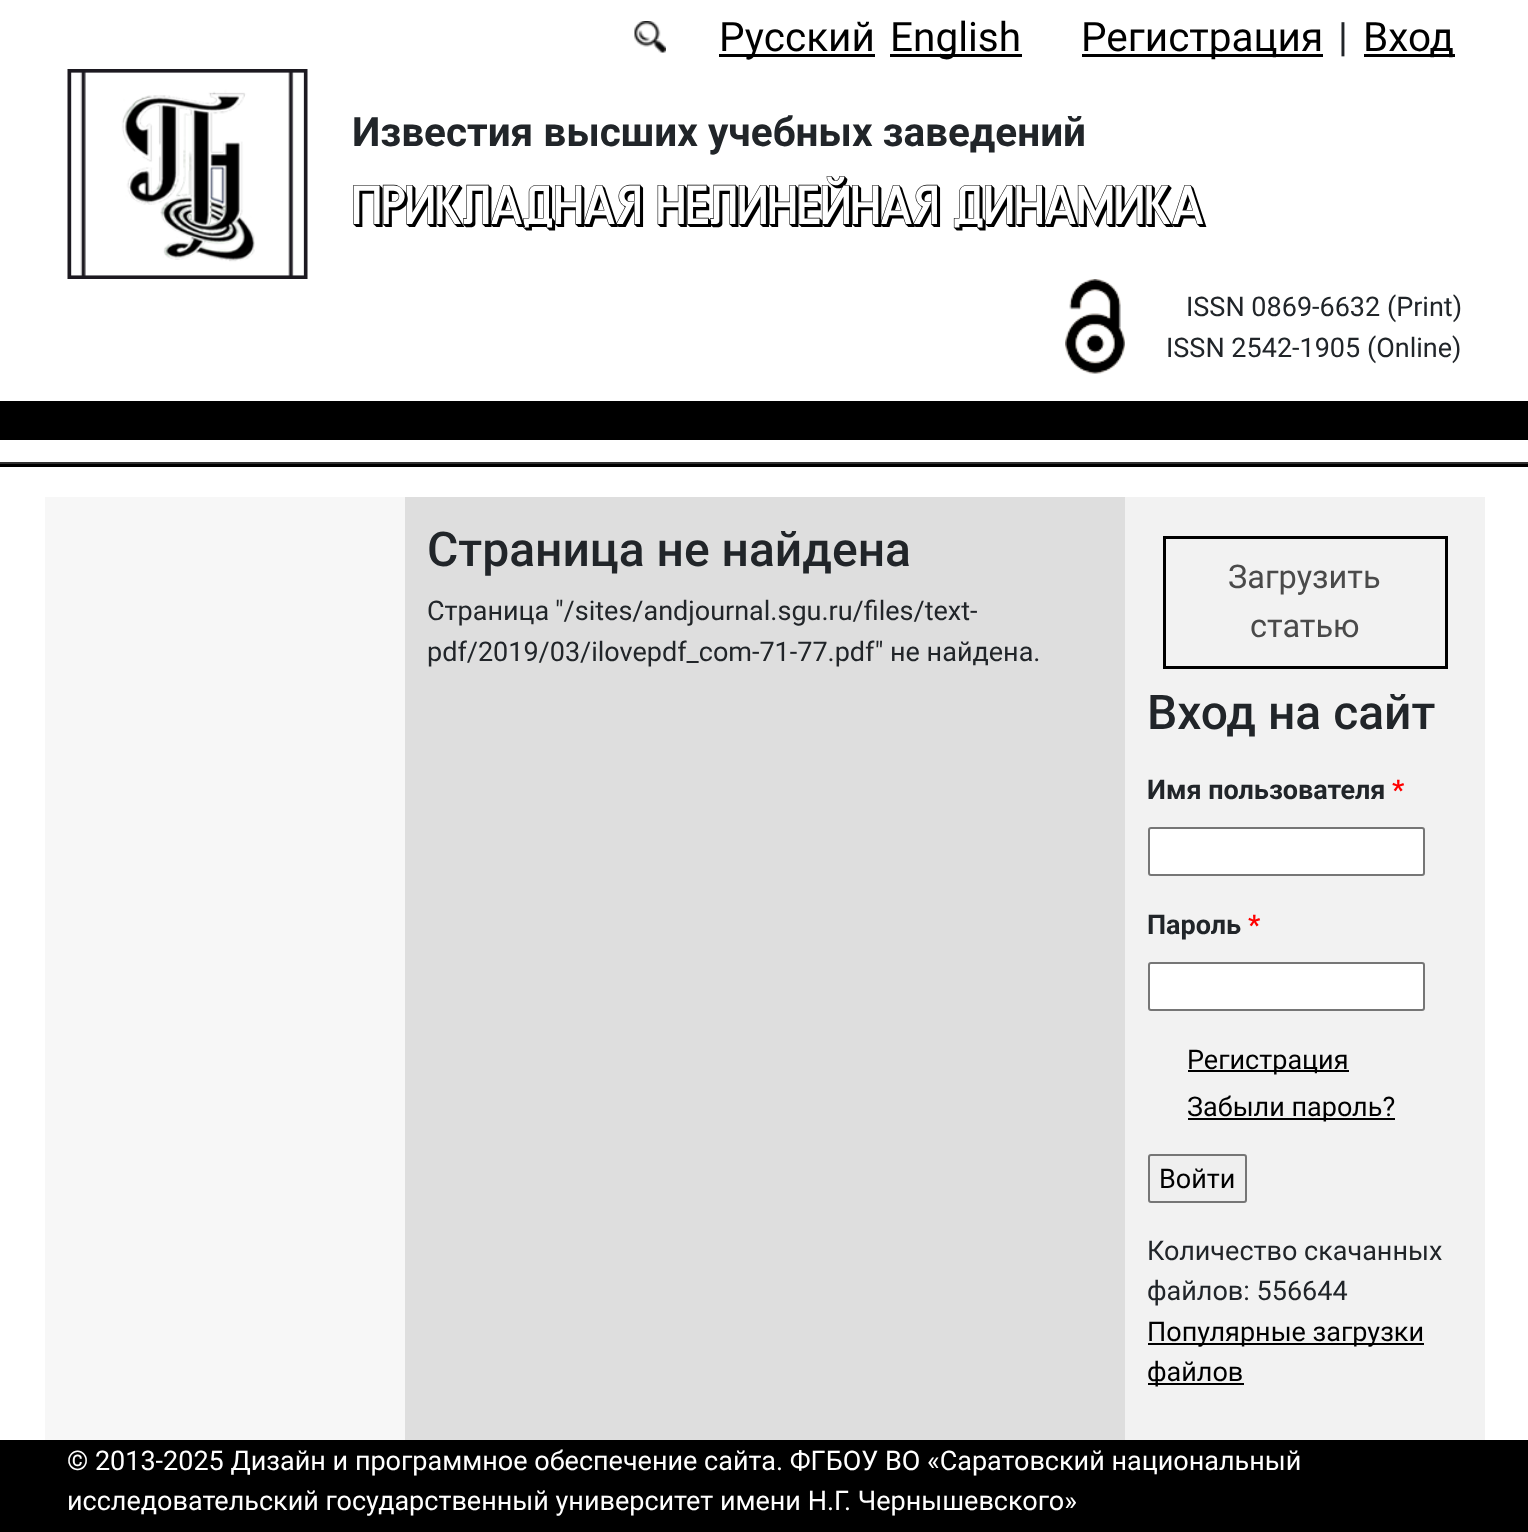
<!DOCTYPE html>
<meta charset="utf-8">
<style>body { margin: 0 } canvas { display: block }</style>
<canvas id="canvas" width="1528" height="1532"></canvas>
<img id="img1" src="img_01.png" hidden>
<img id="img2" src="img_02.png" hidden>
<img id="img3" src="img_03.png" hidden>
<script>
window.onload = function () {
	const canvas = document.getElementById("canvas");
	const ctx = canvas.getContext("2d");
	ctx.miterLimit = 4;
	ctx.fontKerning = "normal";
	function txt(s, x, y) {
		ctx.fillText(s, x, y);
	}
	function fill(x, y, w, h) {
		ctx.fillRect(x, y, w, h);
	}
	function img(id, x, y, w, h) {
		ctx.drawImage(document.getElementById(id), x, y, w, h);
	}

	ctx.fillStyle = "#FFFFFF";
	fill(0, 0, 1528, 1532);
	img("img1", 634, 21, 32, 32);
	ctx.fillStyle = "#000000";
	fill(719, 54, 156, 3);
	fill(890, 54, 132, 3);
	fill(1082, 54, 241, 3);
	fill(1364, 54, 91, 3);
	img("img2", 67, 69, 241, 210);
	img("img3", 1065, 279, 60, 95);
	fill(0, 401, 1528, 39);
	ctx.fillStyle = "#333333";
	fill(0, 462, 1528, 2);
	ctx.fillStyle = "#000000";
	fill(0, 464, 1528, 3);
	ctx.fillStyle = "#F7F7F7";
	fill(45, 497, 360, 943);
	ctx.fillStyle = "#DEDEDE";
	fill(405, 497, 720, 943);
	ctx.fillStyle = "#F2F2F2";
	fill(1125, 497, 360, 943);
	ctx.strokeStyle = "#000000";
	ctx.lineWidth = 3;
	ctx.strokeRect(1164.5, 537.5, 282, 130);
	ctx.fillStyle = "#FFFFFF";
	ctx.beginPath();
	ctx.roundRect(1149, 828, 275, 47, 2);
	ctx.fill();
	ctx.strokeStyle = "#767676";
	ctx.lineWidth = 2;
	ctx.stroke();
	ctx.beginPath();
	ctx.roundRect(1149, 963, 275, 47, 2);
	ctx.fill();
	ctx.stroke();
	ctx.fillStyle = "#000000";
	fill(1188, 1070, 161, 2);
	fill(1188, 1118, 207, 2);
	ctx.fillStyle = "#EFEFEF";
	ctx.beginPath();
	ctx.roundRect(1149, 1155, 97, 47, 2);
	ctx.fill();
	ctx.stroke();
	ctx.fillStyle = "#000000";
	fill(1148, 1343, 276, 2);
	fill(1148, 1383, 96, 2);
	fill(0, 1440, 1528, 92);
	ctx.font = "40.5px Roboto";
	txt("Русский", 719, 51);
	txt("English", 890, 51);
	txt("Регистрация", 1081, 51);
	ctx.fillStyle = "#212529";
	txt("|", 1338, 51);
	ctx.fillStyle = "#000000";
	txt("Вход", 1363, 51);
	ctx.font = "bold 40.5px Roboto";
	ctx.fillStyle = "#212529";
	txt("Известия высших учебных заведений", 352, 146);
	ctx.font = "54px 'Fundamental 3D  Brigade'";
	ctx.fillStyle = "#000000";
	txt("ПРИКЛАДНАЯ НЕЛИНЕЙНАЯ ДИНАМИКА", 352, 224);
	ctx.font = "27px Roboto";
	ctx.fillStyle = "#212529";
	txt("ISSN 0869-6632 (Print)", 1186, 316);
	txt("ISSN 2542-1905 (Online)", 1166, 357);
	ctx.font = "500 48px Roboto";
	txt("Страница не найдена", 427, 566);
	ctx.wordSpacing = "-1px";
	ctx.font = "27px Roboto";
	txt("Страница \"/sites/andjournal.sgu.ru/files/text-", 427, 620);
	ctx.wordSpacing = "0px";
	txt("pdf/2019/03/ilovepdf_com-71-77.pdf\" не найдена.", 427, 661);
	ctx.font = "32.5px Roboto";
	ctx.fillStyle = "#4A4A4A";
	txt("Загрузить", 1228, 588);
	txt("статью", 1250, 637);
	ctx.font = "500 48px Roboto";
	ctx.fillStyle = "#212529";
	txt("Вход на сайт", 1147, 729);
	ctx.font = "bold 27px Roboto";
	txt("Имя пользователя", 1147, 799);
	ctx.fillStyle = "#FF0000";
	txt("*", 1392, 799);
	ctx.fillStyle = "#212529";
	txt("Пароль", 1147, 934);
	ctx.fillStyle = "#FF0000";
	txt("*", 1248, 934);
	ctx.font = "27px Roboto";
	ctx.fillStyle = "#000000";
	txt("Регистрация", 1187, 1069);
	txt("Забыли пароль?", 1187, 1116);
	txt("Войти", 1159, 1188);
	ctx.fillStyle = "#212529";
	txt("Количество скачанных", 1147, 1260);
	txt("файлов: 556644", 1147, 1300);
	ctx.fillStyle = "#000000";
	txt("Популярные загрузки", 1147, 1341);
	txt("файлов", 1147, 1381);
	ctx.fillStyle = "#FFFFFF";
	txt("© 2013-2025 Дизайн и программное обеспечение сайта. ФГБОУ ВО «Саратовский национальный", 67, 1470);
	txt("исследовательский государственный университет имени Н.Г. Чернышевского»", 67, 1510);
};
</script>
